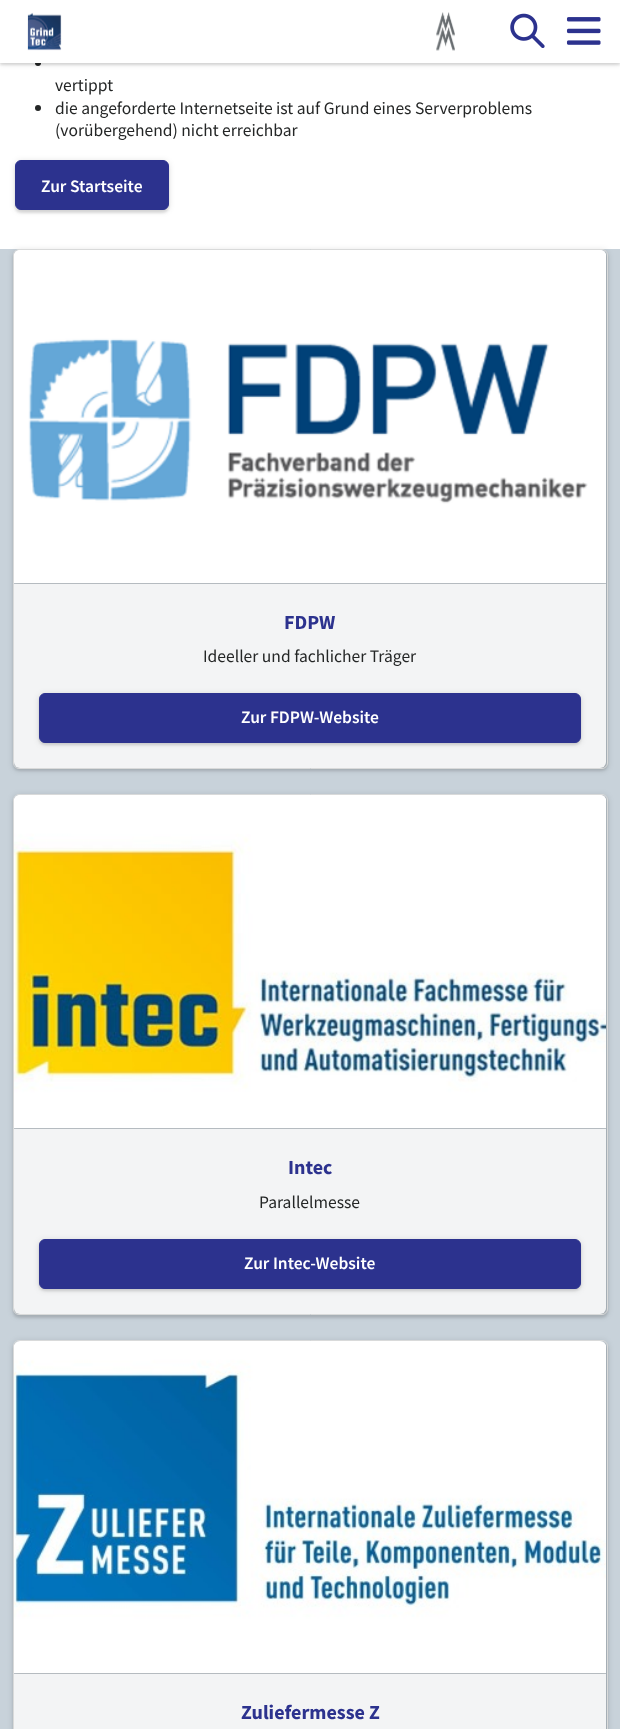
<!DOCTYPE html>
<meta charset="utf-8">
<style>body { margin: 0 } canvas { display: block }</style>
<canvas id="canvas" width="620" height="1729"></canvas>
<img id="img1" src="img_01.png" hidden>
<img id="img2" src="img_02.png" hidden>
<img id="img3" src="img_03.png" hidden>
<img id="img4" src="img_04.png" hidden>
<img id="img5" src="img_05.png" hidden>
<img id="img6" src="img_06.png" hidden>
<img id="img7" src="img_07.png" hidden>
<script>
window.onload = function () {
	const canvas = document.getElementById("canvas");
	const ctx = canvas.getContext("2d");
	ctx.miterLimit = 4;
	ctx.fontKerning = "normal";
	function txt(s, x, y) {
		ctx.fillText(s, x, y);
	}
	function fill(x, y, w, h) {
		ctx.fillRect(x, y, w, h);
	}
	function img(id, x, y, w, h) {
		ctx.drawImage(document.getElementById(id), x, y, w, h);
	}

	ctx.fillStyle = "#FFFFFF";
	fill(0, 0, 620, 1729);
	ctx.fillStyle = "#242626";
	ctx.beginPath();
	ctx.arc(38, 63, 3, 0, Math.PI * 2);
	ctx.fill();
	ctx.fillStyle = "rgba(0, 0, 0, 0.12)";
	ctx.filter = "blur(3px)";
	ctx.beginPath();
	ctx.rect(0, 1, 620, 63);
	ctx.fill();
	ctx.filter = "none";
	ctx.fillStyle = "rgba(0, 0, 0, 0.1)";
	ctx.filter = "blur(1px)";
	ctx.beginPath();
	ctx.rect(0, 3, 620, 62);
	ctx.fill();
	ctx.filter = "none";
	ctx.fillStyle = "#FFFFFF";
	fill(0, 0, 620, 63);
	img("img1", 27, 12, 35, 39);
	img("img2", 436, 12, 19, 39);
	img("img3", 510, 13, 35, 35);
	img("img4", 566, 17, 35, 28);
	ctx.fillStyle = "#242626";
	ctx.beginPath();
	ctx.arc(38, 108, 3, 0, Math.PI * 2);
	ctx.fill();
	ctx.fillStyle = "rgba(0, 0, 0, 0.12)";
	ctx.filter = "blur(3px)";
	ctx.beginPath();
	ctx.roundRect(15, 161, 154, 50, 6);
	ctx.fill();
	ctx.filter = "none";
	ctx.fillStyle = "rgba(0, 0, 0, 0.1)";
	ctx.filter = "blur(1px)";
	ctx.beginPath();
	ctx.roundRect(15, 163, 154, 50, 6);
	ctx.fill();
	ctx.filter = "none";
	ctx.fillStyle = "#2C328E";
	ctx.beginPath();
	ctx.roundRect(15.5, 160.5, 153, 49, 5.5);
	ctx.fill();
	ctx.strokeStyle = "#2C328E";
	ctx.stroke();
	ctx.fillStyle = "#C8D2DA";
	fill(0, 249, 620, 1480);
	ctx.fillStyle = "rgba(0, 0, 0, 0.12)";
	ctx.filter = "blur(3px)";
	ctx.beginPath();
	ctx.roundRect(13, 250, 595, 520, 6);
	ctx.fill();
	ctx.filter = "none";
	ctx.fillStyle = "rgba(0, 0, 0, 0.1)";
	ctx.filter = "blur(1px)";
	ctx.beginPath();
	ctx.roundRect(13, 251, 595, 520, 6);
	ctx.fill();
	ctx.filter = "none";
	ctx.beginPath();
	ctx.roundRect(13.5, 249.5, 594, 519, 5.5);
	ctx.strokeStyle = "#D9DADA";
	ctx.stroke();
	img("img5", 14, 250, 592, 334);
	ctx.fillStyle = "#F3F4F5";
	ctx.beginPath();
	ctx.roundRect(14, 584, 592, 184, [0, 0, 6, 6]);
	ctx.fill();
	ctx.fillStyle = "rgba(0, 0, 0, 0.12)";
	ctx.filter = "blur(3px)";
	ctx.beginPath();
	ctx.roundRect(39, 694, 542, 50, 6);
	ctx.fill();
	ctx.filter = "none";
	ctx.fillStyle = "rgba(0, 0, 0, 0.1)";
	ctx.filter = "blur(1px)";
	ctx.beginPath();
	ctx.roundRect(39, 695, 542, 50, 6);
	ctx.fill();
	ctx.filter = "none";
	ctx.fillStyle = "#2C328E";
	ctx.beginPath();
	ctx.roundRect(39.5, 693.5, 541, 49, 5.5);
	ctx.fill();
	ctx.strokeStyle = "#2C328E";
	ctx.stroke();
	ctx.fillStyle = "rgba(0, 0, 0, 0.12)";
	ctx.filter = "blur(3px)";
	ctx.beginPath();
	ctx.roundRect(13, 795, 595, 521, 6);
	ctx.fill();
	ctx.filter = "none";
	ctx.fillStyle = "rgba(0, 0, 0, 0.1)";
	ctx.filter = "blur(1px)";
	ctx.beginPath();
	ctx.roundRect(13, 796, 595, 522, 6);
	ctx.fill();
	ctx.filter = "none";
	ctx.beginPath();
	ctx.roundRect(13.5, 794.5, 594, 520, 5.5);
	ctx.strokeStyle = "#D9DADA";
	ctx.stroke();
	img("img6", 14, 795, 593, 334);
	ctx.fillStyle = "#F3F4F5";
	ctx.beginPath();
	ctx.roundRect(14, 1129, 592, 185, [0, 0, 6, 6]);
	ctx.fill();
	ctx.fillStyle = "rgba(0, 0, 0, 0.12)";
	ctx.filter = "blur(3px)";
	ctx.beginPath();
	ctx.roundRect(39, 1240, 542, 50, 6);
	ctx.fill();
	ctx.filter = "none";
	ctx.fillStyle = "rgba(0, 0, 0, 0.1)";
	ctx.filter = "blur(1px)";
	ctx.beginPath();
	ctx.roundRect(39, 1241, 542, 50, 6);
	ctx.fill();
	ctx.filter = "none";
	ctx.fillStyle = "#2C328E";
	ctx.beginPath();
	ctx.roundRect(39.5, 1239.5, 541, 49, 5.5);
	ctx.fill();
	ctx.strokeStyle = "#2C328E";
	ctx.stroke();
	ctx.fillStyle = "rgba(0, 0, 0, 0.12)";
	ctx.filter = "blur(3px)";
	ctx.beginPath();
	ctx.roundRect(13, 1341, 595, 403, 6);
	ctx.fill();
	ctx.filter = "none";
	ctx.fillStyle = "rgba(0, 0, 0, 0.1)";
	ctx.filter = "blur(1px)";
	ctx.beginPath();
	ctx.roundRect(13, 1343, 595, 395, 6);
	ctx.fill();
	ctx.filter = "none";
	ctx.beginPath();
	ctx.roundRect(13.5, 1340.5, 594, 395, 5.5);
	ctx.strokeStyle = "#D9DADA";
	ctx.stroke();
	img("img7", 14, 1341, 592, 333);
	ctx.fillStyle = "#F3F4F5";
	fill(14, 1674, 592, 55);
	ctx.font = "17.5px Source Sans Pro";
	ctx.fillStyle = "#242626";
	txt("vertippt", 55, 91);
	txt("die angeforderte Internetseite ist auf Grund eines Serverproblems", 55, 114);
	txt("(vorübergehend) nicht erreichbar", 55, 136);
	ctx.font = "600 17.5px Source Sans Pro";
	ctx.fillStyle = "#FFFFFF";
	txt("Zur Startseite", 41, 192);
	ctx.font = "bold 20px Source Sans Pro";
	ctx.fillStyle = "#2C328E";
	txt("FDPW", 284, 629);
	ctx.font = "17.5px Source Sans Pro";
	ctx.fillStyle = "#242626";
	txt("Ideeller und fachlicher Träger", 203, 662);
	ctx.font = "600 17.5px Source Sans Pro";
	ctx.fillStyle = "#FFFFFF";
	txt("Zur FDPW-Website", 241, 723);
	ctx.font = "bold 20px Source Sans Pro";
	ctx.fillStyle = "#2C328E";
	txt("Intec", 288, 1174);
	ctx.font = "17.5px Source Sans Pro";
	ctx.fillStyle = "#242626";
	txt("Parallelmesse", 259, 1208);
	ctx.font = "600 17.5px Source Sans Pro";
	ctx.fillStyle = "#FFFFFF";
	txt("Zur Intec-Website", 244, 1269);
	ctx.font = "bold 20px Source Sans Pro";
	ctx.fillStyle = "#2C328E";
	txt("Zuliefermesse Z", 241, 1719);
};
</script>
